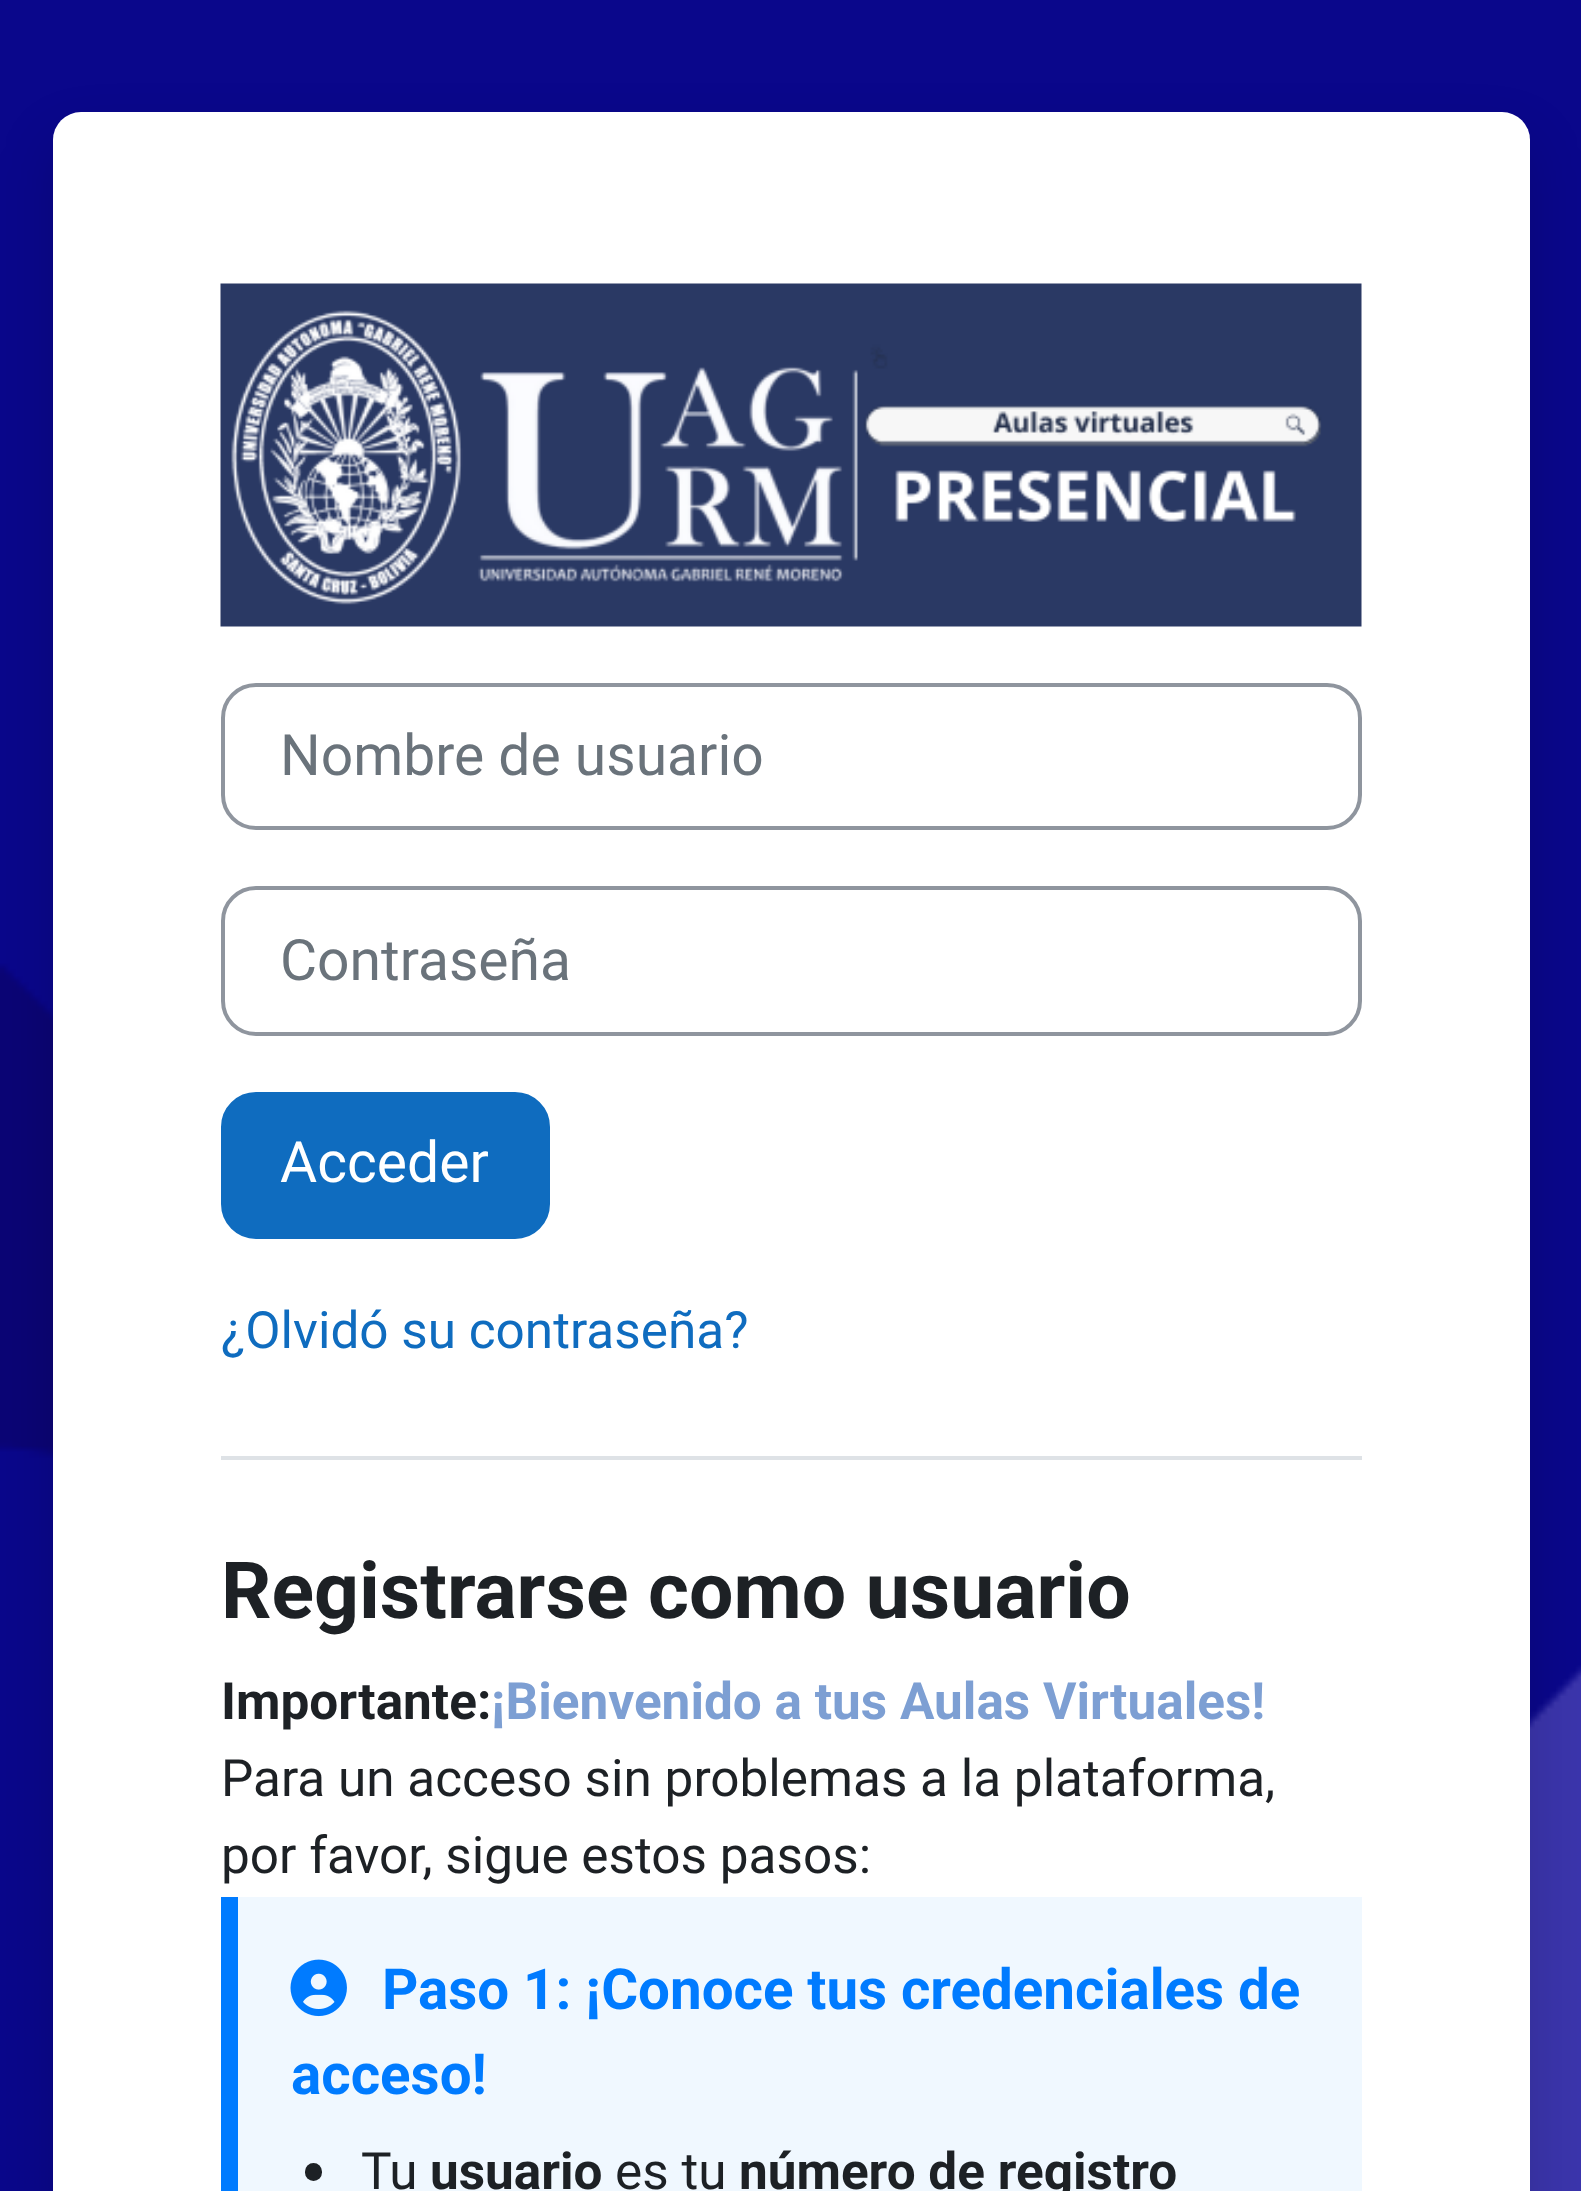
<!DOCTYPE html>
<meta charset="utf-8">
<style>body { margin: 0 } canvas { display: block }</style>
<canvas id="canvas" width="1581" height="2191"></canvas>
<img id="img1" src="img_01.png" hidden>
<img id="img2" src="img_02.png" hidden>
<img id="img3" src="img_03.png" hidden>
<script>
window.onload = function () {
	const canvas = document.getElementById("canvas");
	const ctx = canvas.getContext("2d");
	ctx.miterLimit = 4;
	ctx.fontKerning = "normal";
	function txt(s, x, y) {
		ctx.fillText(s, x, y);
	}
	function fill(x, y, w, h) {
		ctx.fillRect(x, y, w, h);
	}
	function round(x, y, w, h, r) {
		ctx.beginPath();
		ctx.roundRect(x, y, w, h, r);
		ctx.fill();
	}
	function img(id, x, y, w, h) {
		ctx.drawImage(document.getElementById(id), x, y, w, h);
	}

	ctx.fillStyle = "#FFFFFF";
	fill(0, 0, 1581, 2191);
	img("img1", 0, 0, 1581, 2191);
	ctx.fillStyle = "rgba(0, 0, 0, 0.15)";
	ctx.filter = "blur(28px)";
	ctx.beginPath();
	ctx.roundRect(53, 140, 1477, 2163, 28);
	ctx.fill();
	ctx.filter = "none";
	ctx.fillStyle = "#FFFFFF";
	round(53, 112, 1477, 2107, 28);
	img("img2", 220, 283, 1142, 344);
	ctx.beginPath();
	ctx.roundRect(223, 685, 1137, 143, 33);
	ctx.strokeStyle = "#8F959E";
	ctx.lineWidth = 4;
	ctx.stroke();
	ctx.beginPath();
	ctx.roundRect(223, 888, 1137, 146, 33);
	ctx.stroke();
	ctx.fillStyle = "#0F6CBF";
	ctx.beginPath();
	ctx.roundRect(223, 1094, 325, 143, 33);
	ctx.fill();
	ctx.strokeStyle = "#0F6CBF";
	ctx.stroke();
	ctx.fillStyle = "#DEE2E6";
	fill(221, 1456, 1141, 4);
	ctx.fillStyle = "#F0F8FF";
	fill(238, 1897, 1124, 294);
	ctx.fillStyle = "#007BFF";
	fill(221, 1897, 17, 294);
	img("img3", 290, 1959, 57, 58);
	ctx.fillStyle = "#1D2125";
	round(305, 2163, 17, 18, 8.5);
	ctx.font = "57px Roboto";
	ctx.fillStyle = "#6A737B";
	txt("Nombre de usuario", 280, 775);
	txt("Contraseña", 280, 980);
	ctx.fillStyle = "#FFFFFF";
	txt("Acceder", 280, 1182);
	ctx.font = "51.3px Roboto";
	ctx.fillStyle = "#0F6CBF";
	txt("¿Olvidó su contraseña?", 221, 1348);
	ctx.font = "bold 78.75px Roboto";
	ctx.fillStyle = "#1D2125";
	txt("Registrarse como usuario", 221, 1618);
	ctx.font = "bold 51.3px Roboto";
	txt("Importante:", 221, 1719);
	ctx.fillStyle = "#7D9FD3";
	txt("¡Bienvenido a tus Aulas Virtuales!", 491, 1719);
	ctx.font = "51.3px Roboto";
	ctx.fillStyle = "#1D2125";
	txt("Para un acceso sin problemas a la plataforma,", 221, 1796);
	txt("por favor, sigue estos pasos:", 221, 1873);
	ctx.wordSpacing = "-0.25px";
	ctx.font = "bold 56.5px Roboto";
	ctx.fillStyle = "#007BFF";
	txt("Paso 1: ¡Conoce tus credenciales de", 382, 2009);
	ctx.wordSpacing = "0px";
	txt("acceso!", 291, 2094);
	ctx.font = "51.3px Roboto";
	ctx.fillStyle = "#1D2125";
	txt("Tu", 361, 2189);
	ctx.font = "bold 51.3px Roboto";
	txt("usuario", 430, 2189);
	ctx.font = "51.3px Roboto";
	txt("es tu", 615, 2189);
	ctx.font = "bold 51.3px Roboto";
	txt("número de registro", 739, 2189);
};
</script>
